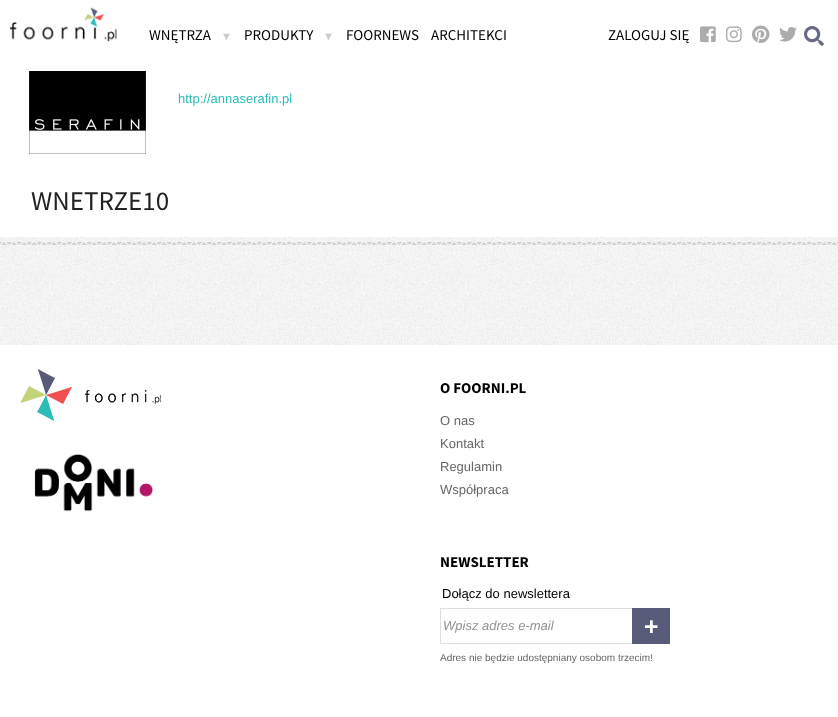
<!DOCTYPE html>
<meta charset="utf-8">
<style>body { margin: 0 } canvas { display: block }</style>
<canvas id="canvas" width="838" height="717"></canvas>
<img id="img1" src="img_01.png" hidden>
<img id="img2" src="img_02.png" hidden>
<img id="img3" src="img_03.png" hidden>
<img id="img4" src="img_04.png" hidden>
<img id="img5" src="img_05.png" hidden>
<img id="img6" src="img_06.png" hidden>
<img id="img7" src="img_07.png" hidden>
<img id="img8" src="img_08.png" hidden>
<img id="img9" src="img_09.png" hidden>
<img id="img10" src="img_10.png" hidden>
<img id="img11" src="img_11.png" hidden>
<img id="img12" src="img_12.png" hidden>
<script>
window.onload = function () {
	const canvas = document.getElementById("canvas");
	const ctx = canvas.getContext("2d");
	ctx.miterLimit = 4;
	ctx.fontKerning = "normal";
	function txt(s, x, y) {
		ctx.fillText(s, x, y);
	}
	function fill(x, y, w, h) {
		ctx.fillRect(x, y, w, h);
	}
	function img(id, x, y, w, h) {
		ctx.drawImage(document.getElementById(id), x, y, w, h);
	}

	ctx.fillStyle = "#FFFFFF";
	fill(0, 0, 838, 717);
	img("img1", 0, 237, 838, 108);
	img("img2", 10, 7, 107, 35);
	img("img3", 700, 26, 16, 17);
	img("img4", 726, 26, 16, 17);
	img("img5", 752, 25, 18, 18);
	img("img6", 779, 27, 18, 15);
	img("img7", 804, 26, 20, 20);
	img("img8", 29, 71, 117, 83);
	img("img9", 0, 242, 838, 3);
	img("img10", 21, 369, 140, 52);
	img("img11", 34, 453, 120, 59);
	ctx.strokeStyle = "#DFDFDF";
	ctx.strokeRect(440.5, 608.5, 229, 35);
	img("img12", 632, 608, 38, 36);
	ctx.font = "15px Source Sans Pro";
	ctx.fillStyle = "#000000";
	txt("WNĘTRZA", 149, 40);
	ctx.font = "11px Liberation Sans";
	ctx.fillStyle = "#CCCCCC";
	txt("▼", 221, 40);
	ctx.font = "15px Source Sans Pro";
	ctx.fillStyle = "#000000";
	txt("PRODUKTY", 244, 40);
	ctx.font = "11px Liberation Sans";
	ctx.fillStyle = "#CCCCCC";
	txt("▼", 323, 40);
	ctx.font = "15px Source Sans Pro";
	ctx.fillStyle = "#000000";
	txt("FOORNEWS", 346, 40);
	txt("ARCHITEKCI", 431, 40);
	txt("ZALOGUJ SIĘ", 608, 40);
	ctx.font = "13px Arimo";
	ctx.fillStyle = "#2BBCB9";
	txt("http://annaserafin.pl", 178, 103);
	ctx.font = "27px Source Sans Pro";
	ctx.fillStyle = "#222222";
	txt("WNETRZE10", 31, 210);
	ctx.font = "bold 15px Source Sans Pro";
	ctx.fillStyle = "#000000";
	txt("O FOORNI.PL", 440, 393);
	ctx.font = "13px Arimo";
	ctx.fillStyle = "#666666";
	txt("O nas", 440, 425);
	txt("Kontakt", 440, 448);
	txt("Regulamin", 440, 471);
	txt("Współpraca", 440, 494);
	ctx.font = "bold 15px Source Sans Pro";
	ctx.fillStyle = "#000000";
	txt("NEWSLETTER", 440, 567);
	ctx.font = "13px Arimo";
	txt("Dołącz do newslettera", 442, 598);
	ctx.font = "italic 13px Liberation Sans";
	ctx.fillStyle = "#929292";
	txt("Wpisz adres e-mail", 443, 630);
	ctx.font = "10px Arimo";
	ctx.fillStyle = "#666666";
	txt("Adres nie będzie udostępniany osobom trzecim!", 440, 661);
};
</script>
